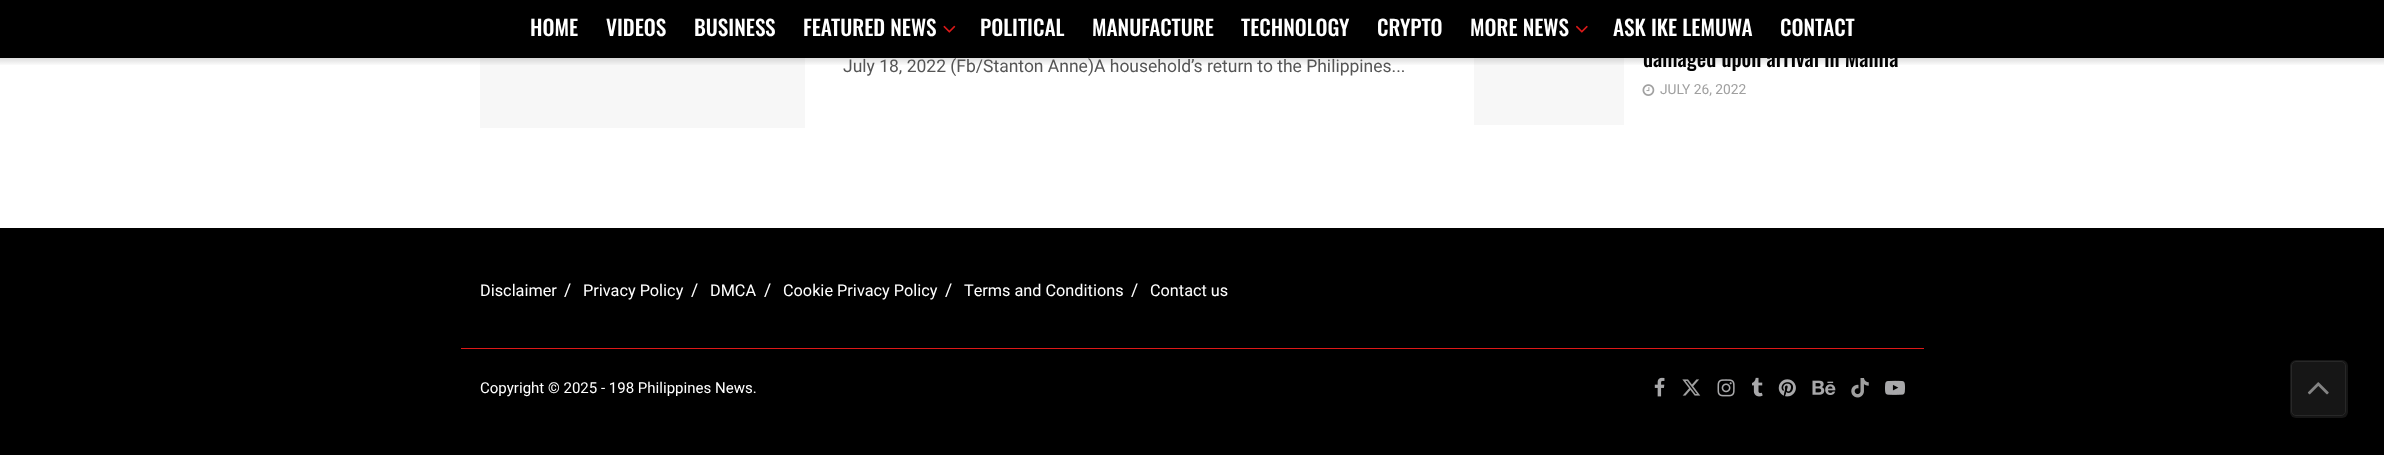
<!DOCTYPE html>
<meta charset="utf-8">
<style>body { margin: 0 } canvas { display: block }</style>
<canvas id="canvas" width="2384" height="455"></canvas>
<img id="img1" src="img_01.png" hidden>
<img id="img2" src="img_02.png" hidden>
<img id="img3" src="img_03.png" hidden>
<img id="img4" src="img_04.png" hidden>
<img id="img5" src="img_05.png" hidden>
<img id="img6" src="img_06.png" hidden>
<img id="img7" src="img_07.png" hidden>
<img id="img8" src="img_08.png" hidden>
<img id="img9" src="img_09.png" hidden>
<img id="img10" src="img_10.png" hidden>
<img id="img11" src="img_11.png" hidden>
<img id="img12" src="img_12.png" hidden>
<script>
window.onload = function () {
	const canvas = document.getElementById("canvas");
	const ctx = canvas.getContext("2d");
	ctx.miterLimit = 4;
	ctx.fontKerning = "normal";
	function txt(s, x, y) {
		ctx.fillText(s, x, y);
	}
	function fill(x, y, w, h) {
		ctx.fillRect(x, y, w, h);
	}
	function round(x, y, w, h, r) {
		ctx.beginPath();
		ctx.roundRect(x, y, w, h, r);
		ctx.fill();
	}
	function img(id, x, y, w, h) {
		ctx.drawImage(document.getElementById(id), x, y, w, h);
	}
	let gradient;

	ctx.fillStyle = "#FFFFFF";
	fill(0, 0, 2384, 455);
	ctx.fillStyle = "#000000";
	fill(0, 0, 2384, 58);
	img("img1", 943, 25, 13, 8);
	img("img2", 1576, 25, 12, 8);
	ctx.fillStyle = "#F7F7F7";
	fill(480, 58, 325, 70);
	fill(1474, 58, 150, 67);
	gradient = ctx.createLinearGradient(1193, 57, 1193, 66);
	gradient.addColorStop(0, "rgba(0, 0, 0, 0.15)");
	gradient.addColorStop(1, "rgba(0, 0, 0, 0)");
	ctx.fillStyle = gradient;
	fill(0, 58, 2384, 7);
	img("img3", 1642, 84, 13, 12);
	ctx.fillStyle = "#000000";
	fill(0, 228, 2384, 227);
	ctx.fillStyle = "#DD1918";
	fill(461, 348, 1463, 1);
	img("img4", 1654, 377, 11, 20);
	img("img5", 1682, 379, 19, 17);
	img("img6", 1717, 379, 18, 18);
	img("img7", 1752, 377, 11, 20);
	img("img8", 1778, 379, 18, 18);
	img("img9", 1812, 380, 24, 15);
	img("img10", 1851, 378, 18, 20);
	img("img11", 1885, 380, 20, 15);
	ctx.fillStyle = "#161616";
	round(2290, 360, 58, 58, 6);
	ctx.beginPath();
	ctx.roundRect(2291.5, 361.5, 54, 54, 4.5);
	ctx.strokeStyle = "#282828";
	ctx.stroke();
	img("img12", 2307, 382, 22, 13);
	ctx.font = "500 21.25px Oswald";
	ctx.fillStyle = "#FFFFFF";
	txt("HOME", 530, 36);
	txt("VIDEOS", 606, 36);
	txt("BUSINESS", 694, 36);
	txt("FEATURED NEWS", 803, 36);
	txt("POLITICAL", 980, 36);
	txt("MANUFACTURE", 1092, 36);
	txt("TECHNOLOGY", 1241, 36);
	txt("CRYPTO", 1377, 36);
	txt("MORE NEWS", 1470, 36);
	txt("ASK IKE LEMUWA", 1613, 36);
	txt("CONTACT", 1780, 36);
	ctx.font = "17.5px Roboto";
	ctx.fillStyle = "#555555";
	txt("July 18, 2022 (Fb/Stanton Anne)A household’s return to the Philippines...", 843, 72);
	ctx.font = "500 21.25px Oswald";
	ctx.fillStyle = "#000000";
	txt("damaged upon arrival in Manila", 1643, 67);
	ctx.font = "13.75px Heebo";
	ctx.fillStyle = "#A0A0A0";
	txt("JULY 26, 2022", 1660, 94);
	ctx.font = "16.25px Heebo";
	ctx.fillStyle = "#FFFFFF";
	txt("Disclaimer", 480, 296);
	ctx.font = "17.5px Heebo";
	txt("/", 564, 296);
	ctx.font = "16.25px Heebo";
	txt("Privacy Policy", 583, 296);
	ctx.font = "17.5px Heebo";
	txt("/", 691, 296);
	ctx.font = "16.25px Heebo";
	txt("DMCA", 710, 296);
	ctx.font = "17.5px Heebo";
	txt("/", 764, 296);
	ctx.font = "16.25px Heebo";
	txt("Cookie Privacy Policy", 783, 296);
	ctx.font = "17.5px Heebo";
	txt("/", 945, 296);
	ctx.font = "16.25px Heebo";
	txt("Terms and Conditions", 964, 296);
	ctx.font = "17.5px Heebo";
	txt("/", 1131, 296);
	ctx.font = "16.25px Heebo";
	txt("Contact us", 1150, 296);
	ctx.font = "15px Heebo";
	txt("Copyright © 2025 - 198 Philippines News.", 480, 393);
};
</script>
